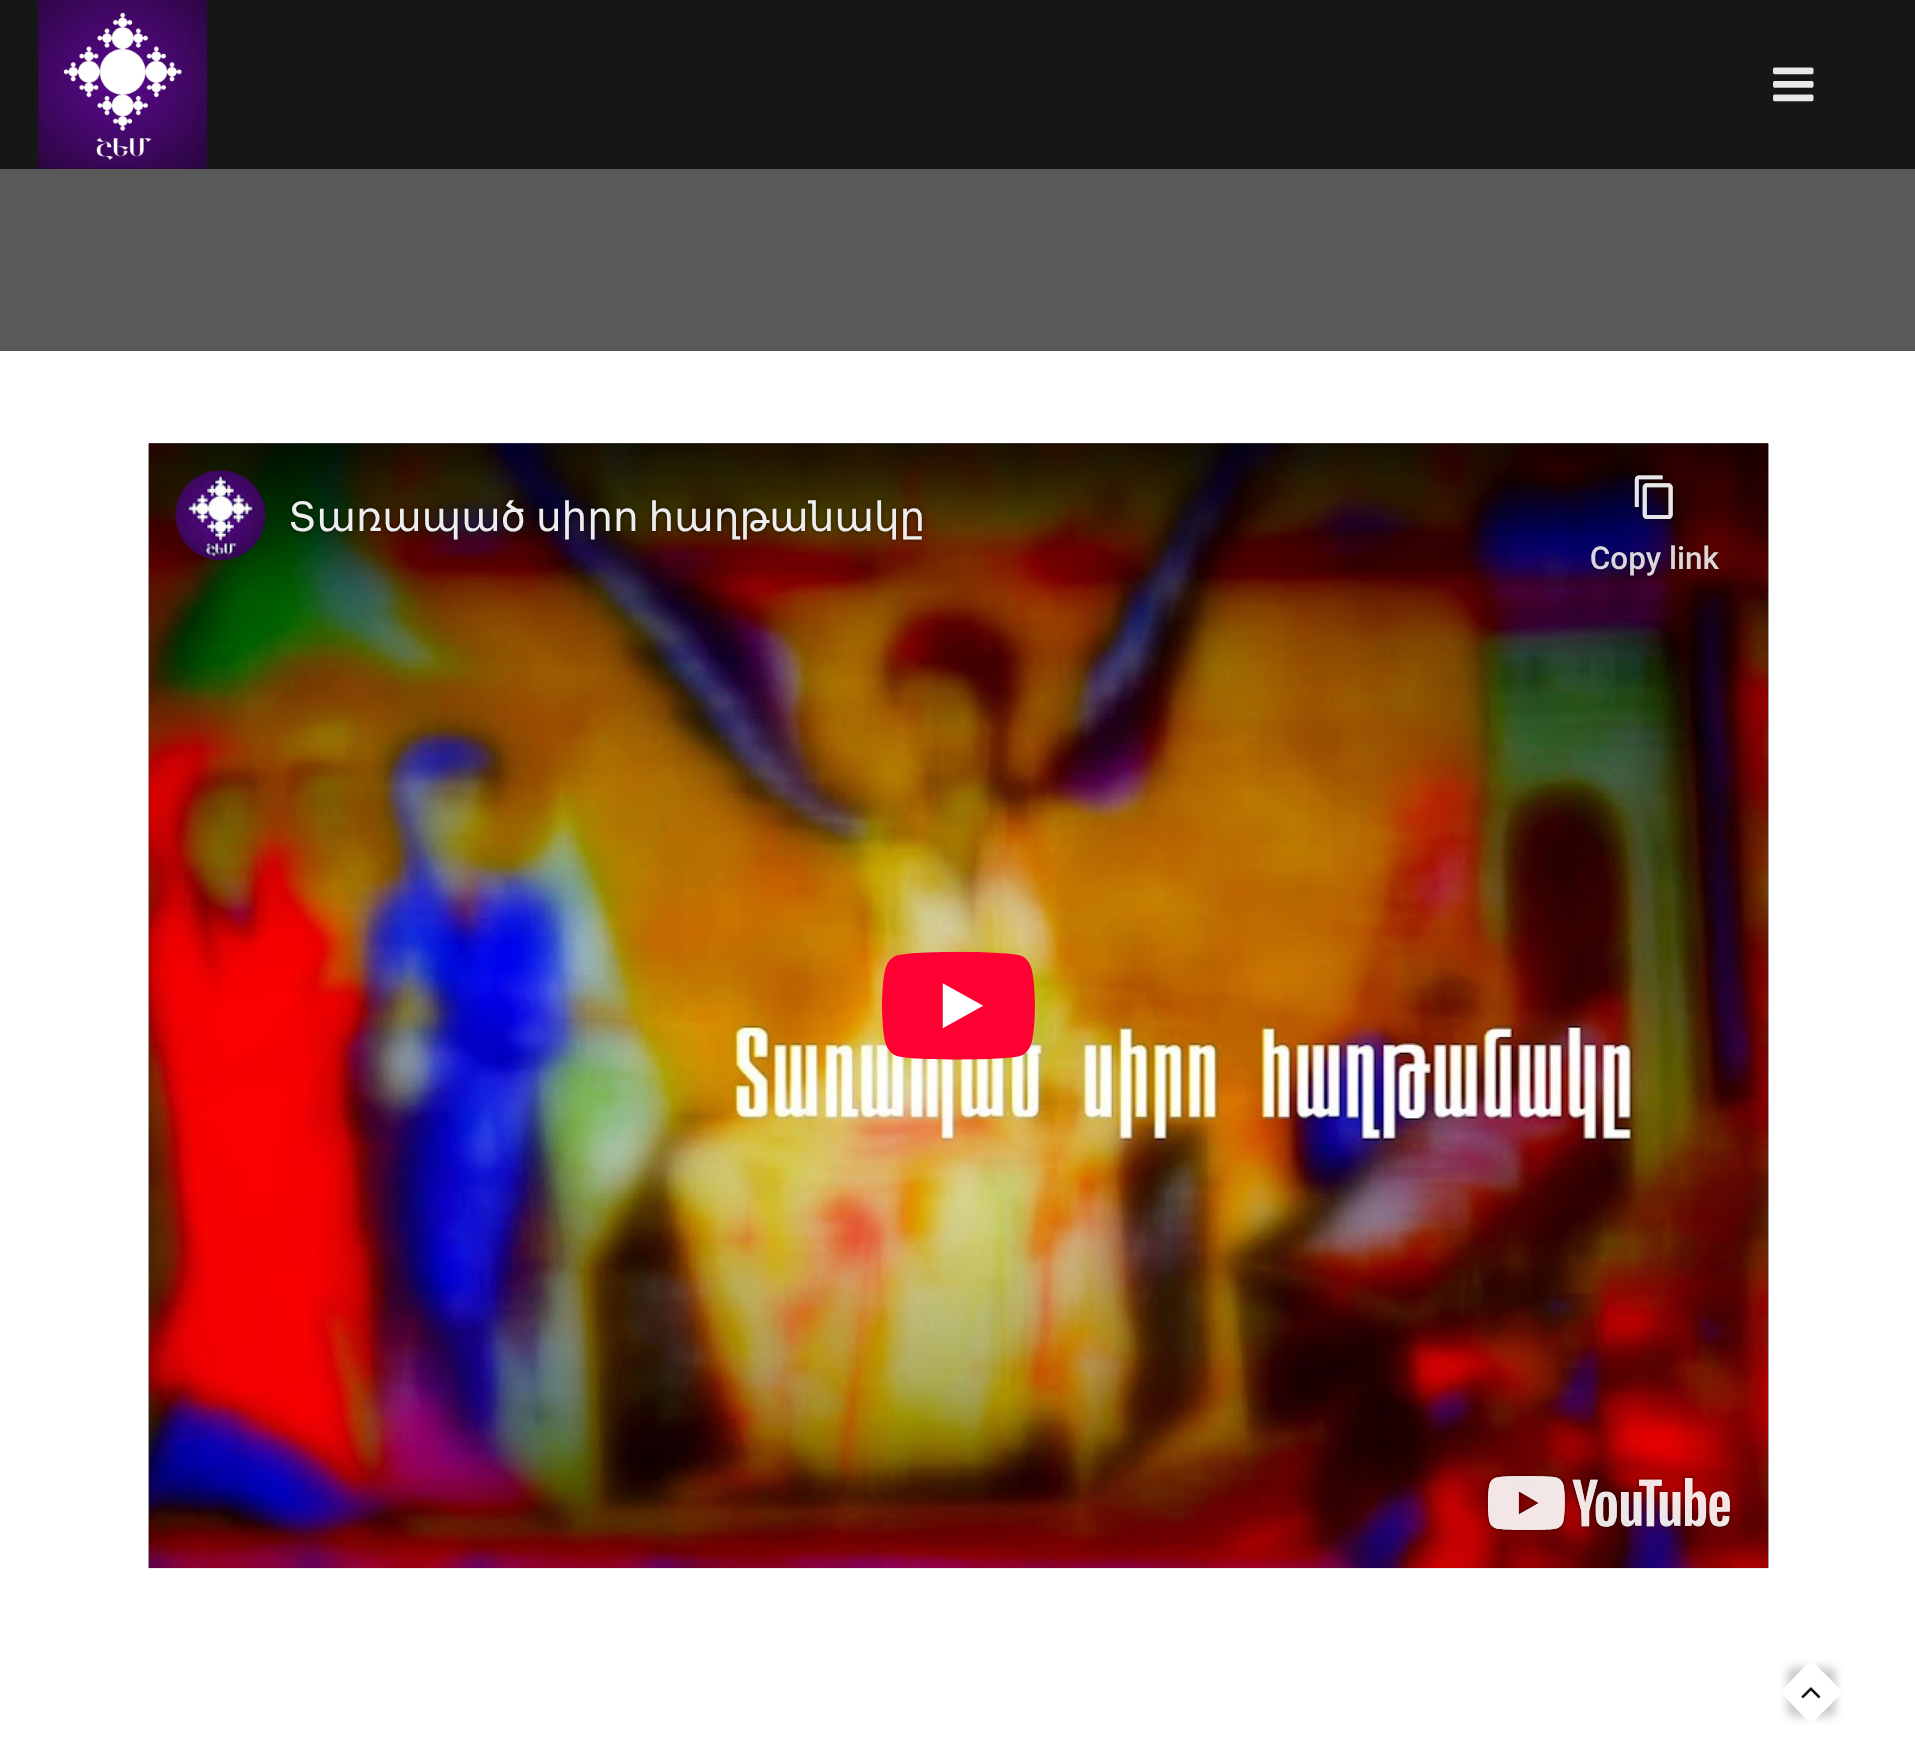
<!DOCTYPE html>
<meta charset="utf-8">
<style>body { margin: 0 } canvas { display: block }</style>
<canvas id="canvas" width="1915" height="1759"></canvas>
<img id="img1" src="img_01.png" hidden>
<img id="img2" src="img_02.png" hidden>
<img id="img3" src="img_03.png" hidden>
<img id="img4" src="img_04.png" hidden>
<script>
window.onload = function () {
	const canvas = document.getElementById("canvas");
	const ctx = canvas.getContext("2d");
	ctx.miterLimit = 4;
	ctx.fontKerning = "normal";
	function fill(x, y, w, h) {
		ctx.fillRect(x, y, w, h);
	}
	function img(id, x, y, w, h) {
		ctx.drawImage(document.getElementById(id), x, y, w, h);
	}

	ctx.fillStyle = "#FFFFFF";
	fill(0, 0, 1915, 1759);
	ctx.fillStyle = "#161616";
	fill(0, 0, 1915, 169);
	img("img1", 38, 0, 169, 169);
	img("img2", 1773, 67, 41, 35);
	ctx.fillStyle = "#595959";
	fill(0, 169, 1915, 182);
	img("img3", 148, 443, 1621, 1126);
	ctx.fillStyle = "#CDCDCD";
	ctx.filter = "blur(4.5px)";
	ctx.beginPath();
	ctx.roundRect(1787, 1667, 49, 50, 7);
	ctx.fill();
	ctx.filter = "none";
	ctx.fillStyle = "#FFFFFF";
	ctx.beginPath();
	ctx.moveTo(1814, 1663);
	ctx.lineTo(1840, 1689);
	ctx.bezierCurveTo(1842, 1691, 1842, 1693, 1840, 1695);
	ctx.lineTo(1814, 1721);
	ctx.bezierCurveTo(1813, 1722, 1810, 1722, 1808, 1721);
	ctx.lineTo(1783, 1695);
	ctx.bezierCurveTo(1781, 1693, 1781, 1691, 1783, 1689);
	ctx.lineTo(1808, 1663);
	ctx.bezierCurveTo(1810, 1662, 1813, 1662, 1814, 1663);
	ctx.closePath();
	ctx.fill();
	img("img4", 1801, 1687, 20, 12);
};
</script>
